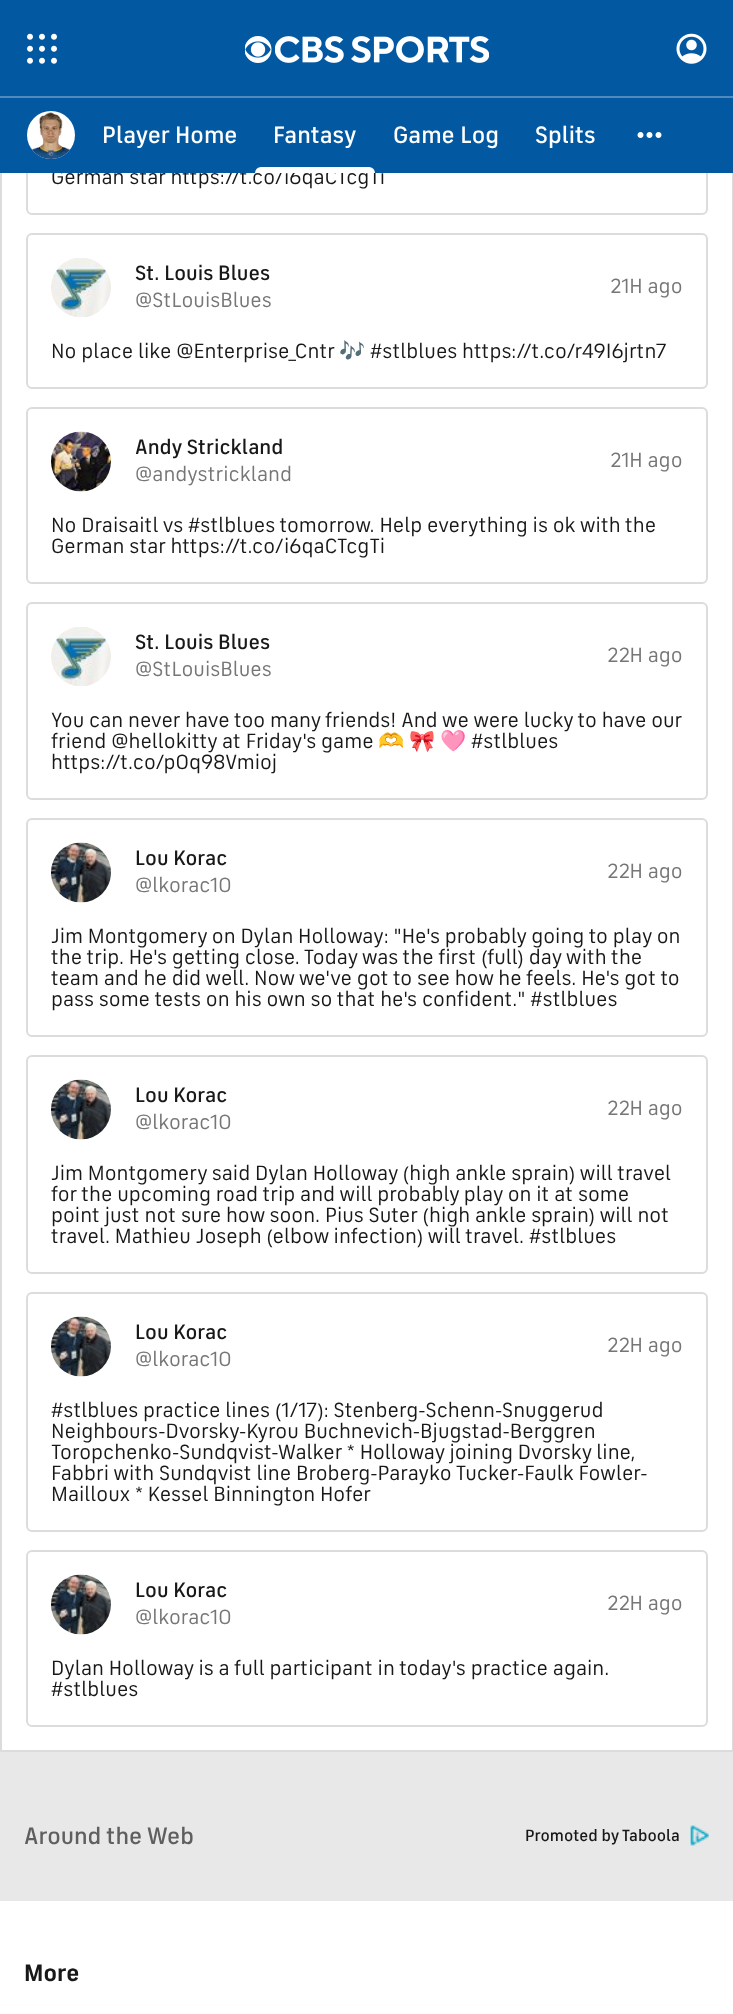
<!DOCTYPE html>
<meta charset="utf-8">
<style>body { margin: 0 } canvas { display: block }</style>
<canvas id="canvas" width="733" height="2014"></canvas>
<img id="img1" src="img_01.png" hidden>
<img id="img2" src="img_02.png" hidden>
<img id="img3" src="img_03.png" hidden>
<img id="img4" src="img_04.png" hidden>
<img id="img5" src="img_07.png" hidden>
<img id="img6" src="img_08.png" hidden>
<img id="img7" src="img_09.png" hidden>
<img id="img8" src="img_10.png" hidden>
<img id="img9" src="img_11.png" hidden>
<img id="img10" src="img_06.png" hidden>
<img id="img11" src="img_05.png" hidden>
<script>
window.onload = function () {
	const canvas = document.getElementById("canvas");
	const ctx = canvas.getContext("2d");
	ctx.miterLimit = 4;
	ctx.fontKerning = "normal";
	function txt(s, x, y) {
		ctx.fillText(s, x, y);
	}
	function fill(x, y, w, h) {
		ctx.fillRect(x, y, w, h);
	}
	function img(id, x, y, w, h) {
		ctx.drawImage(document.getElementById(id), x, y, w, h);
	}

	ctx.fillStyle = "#FFFFFF";
	fill(0, 0, 733, 2014);
	ctx.strokeStyle = "#DCDCDC";
	ctx.lineWidth = 2;
	ctx.strokeRect(1, -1, 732, 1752);
	ctx.beginPath();
	ctx.roundRect(27, 39, 680, 175, 5);
	ctx.stroke();
	ctx.fillStyle = "#0358A2";
	fill(0, 0, 733, 96);
	ctx.fillStyle = "#4F8ABE";
	fill(0, 96, 733, 2);
	img("img1", 27, 33, 30, 31);
	img("img2", 245, 36, 27, 27);
	img("img3", 275, 36, 214, 27);
	img("img4", 676, 33, 31, 31);
	ctx.fillStyle = "#E8E8E8";
	fill(0, 1752, 733, 149);
	ctx.beginPath();
	ctx.roundRect(27, 234, 680, 154, 5);
	ctx.stroke();
	img("img5", 51, 258, 60, 59);
	ctx.beginPath();
	ctx.roundRect(27, 408, 680, 175, 5);
	ctx.stroke();
	img("img6", 51, 431, 60, 61);
	ctx.beginPath();
	ctx.roundRect(27, 603, 680, 196, 5);
	ctx.stroke();
	img("img5", 51, 627, 60, 59);
	ctx.beginPath();
	ctx.roundRect(27, 819, 680, 217, 5);
	ctx.stroke();
	img("img7", 51, 842, 60, 61);
	ctx.beginPath();
	ctx.roundRect(27, 1056, 680, 217, 5);
	ctx.stroke();
	img("img8", 51, 1079, 60, 61);
	ctx.beginPath();
	ctx.roundRect(27, 1293, 680, 238, 5);
	ctx.stroke();
	img("img8", 51, 1316, 60, 61);
	ctx.beginPath();
	ctx.roundRect(27, 1551, 680, 175, 5);
	ctx.stroke();
	img("img8", 51, 1574, 60, 61);
	img("img9", 690, 1825, 19, 21);
	ctx.font = "21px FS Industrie";
	ctx.fillStyle = "#181818";
	txt("German star https://t.co/i6qaCTcgTi", 51, 184);
	ctx.fillStyle = "#0358A2";
	fill(0, 98, 733, 75);
	img("img10", 637, 132, 25, 6);
	ctx.font = "500 24px FS Industrie";
	ctx.fillStyle = "#FFFFFF";
	txt("Splits", 535, 143);
	txt("Game Log", 393, 143);
	ctx.beginPath();
	ctx.roundRect(255, 167, 120, 6, [6, 6, 0, 0]);
	ctx.fill();
	txt("Fantasy", 273, 143);
	txt("Player Home", 102, 143);
	ctx.beginPath();
	ctx.arc(51, 135, 24, 0, Math.PI * 2);
	ctx.fill();
	img("img11", 32, 112, 38, 47);
	ctx.font = "500 21px FS Industrie";
	ctx.fillStyle = "#181818";
	txt("St. Louis Blues", 135, 280);
	ctx.font = "21px FS Industrie";
	ctx.fillStyle = "#767676";
	txt("@StLouisBlues", 135, 307);
	txt("21H ago", 610, 293);
	ctx.fillStyle = "#181818";
	txt("No place like @Enterprise_Cntr", 51, 358);
	ctx.font = "21px Noto Color Emoji";
	txt("🎶", 339, 358);
	ctx.font = "21px FS Industrie";
	txt("#stlblues https://t.co/r49I6jrtn7", 370, 358);
	ctx.font = "500 21px FS Industrie";
	txt("Andy Strickland", 135, 454);
	ctx.font = "21px FS Industrie";
	ctx.fillStyle = "#767676";
	txt("@andystrickland", 135, 481);
	txt("21H ago", 610, 467);
	ctx.fillStyle = "#181818";
	txt("No Draisaitl vs #stlblues tomorrow. Help everything is ok with the", 51, 532);
	txt("German star https://t.co/i6qaCTcgTi", 51, 553);
	ctx.font = "500 21px FS Industrie";
	txt("St. Louis Blues", 135, 649);
	ctx.font = "21px FS Industrie";
	ctx.fillStyle = "#767676";
	txt("@StLouisBlues", 135, 676);
	txt("22H ago", 607, 662);
	ctx.fillStyle = "#181818";
	txt("You can never have too many friends! And we were lucky to have our", 51, 727);
	txt("friend @hellokitty at Friday's game", 51, 748);
	ctx.font = "21px Noto Color Emoji";
	txt("🫶", 378, 748);
	txt("🎀", 409, 748);
	txt("🩷", 440, 748);
	ctx.font = "21px FS Industrie";
	txt("#stlblues", 471, 748);
	txt("https://t.co/pOq98Vmioj", 51, 769);
	ctx.font = "500 21px FS Industrie";
	txt("Lou Korac", 135, 865);
	ctx.font = "21px FS Industrie";
	ctx.fillStyle = "#767676";
	txt("@lkorac10", 135, 892);
	txt("22H ago", 607, 878);
	ctx.fillStyle = "#181818";
	txt("Jim Montgomery on Dylan Holloway: \"He's probably going to play on", 51, 943);
	txt("the trip. He's getting close. Today was the first (full) day with the", 51, 964);
	txt("team and he did well. Now we've got to see how he feels. He's got to", 51, 985);
	txt("pass some tests on his own so that he's confident.\" #stlblues", 51, 1006);
	ctx.font = "500 21px FS Industrie";
	txt("Lou Korac", 135, 1102);
	ctx.font = "21px FS Industrie";
	ctx.fillStyle = "#767676";
	txt("@lkorac10", 135, 1129);
	txt("22H ago", 607, 1115);
	ctx.fillStyle = "#181818";
	txt("Jim Montgomery said Dylan Holloway (high ankle sprain) will travel", 51, 1180);
	txt("for the upcoming road trip and will probably play on it at some", 51, 1201);
	txt("point just not sure how soon. Pius Suter (high ankle sprain) will not", 51, 1222);
	txt("travel. Mathieu Joseph (elbow infection) will travel. #stlblues", 51, 1243);
	ctx.font = "500 21px FS Industrie";
	txt("Lou Korac", 135, 1339);
	ctx.font = "21px FS Industrie";
	ctx.fillStyle = "#767676";
	txt("@lkorac10", 135, 1366);
	txt("22H ago", 607, 1352);
	ctx.fillStyle = "#181818";
	txt("#stlblues practice lines (1/17): Stenberg-Schenn-Snuggerud", 51, 1417);
	txt("Neighbours-Dvorsky-Kyrou Buchnevich-Bjugstad-Berggren", 51, 1438);
	txt("Toropchenko-Sundqvist-Walker * Holloway joining Dvorsky line,", 51, 1459);
	txt("Fabbri with Sundqvist line Broberg-Parayko Tucker-Faulk Fowler-", 51, 1480);
	txt("Mailloux * Kessel Binnington Hofer", 51, 1501);
	ctx.font = "500 21px FS Industrie";
	txt("Lou Korac", 135, 1597);
	ctx.font = "21px FS Industrie";
	ctx.fillStyle = "#767676";
	txt("@lkorac10", 135, 1624);
	txt("22H ago", 607, 1610);
	ctx.fillStyle = "#181818";
	txt("Dylan Holloway is a full participant in today's practice again.", 51, 1675);
	txt("#stlblues", 51, 1696);
	ctx.font = "500 24px FS Industrie";
	ctx.fillStyle = "#5F5F5F";
	txt("Around the Web", 24, 1844);
	ctx.font = "500 16.5px FS Industrie";
	ctx.fillStyle = "#181818";
	txt("Promoted by Taboola", 525, 1841);
	ctx.font = "bold 24px FS Industrie";
	txt("More", 24, 1981);
};
</script>
